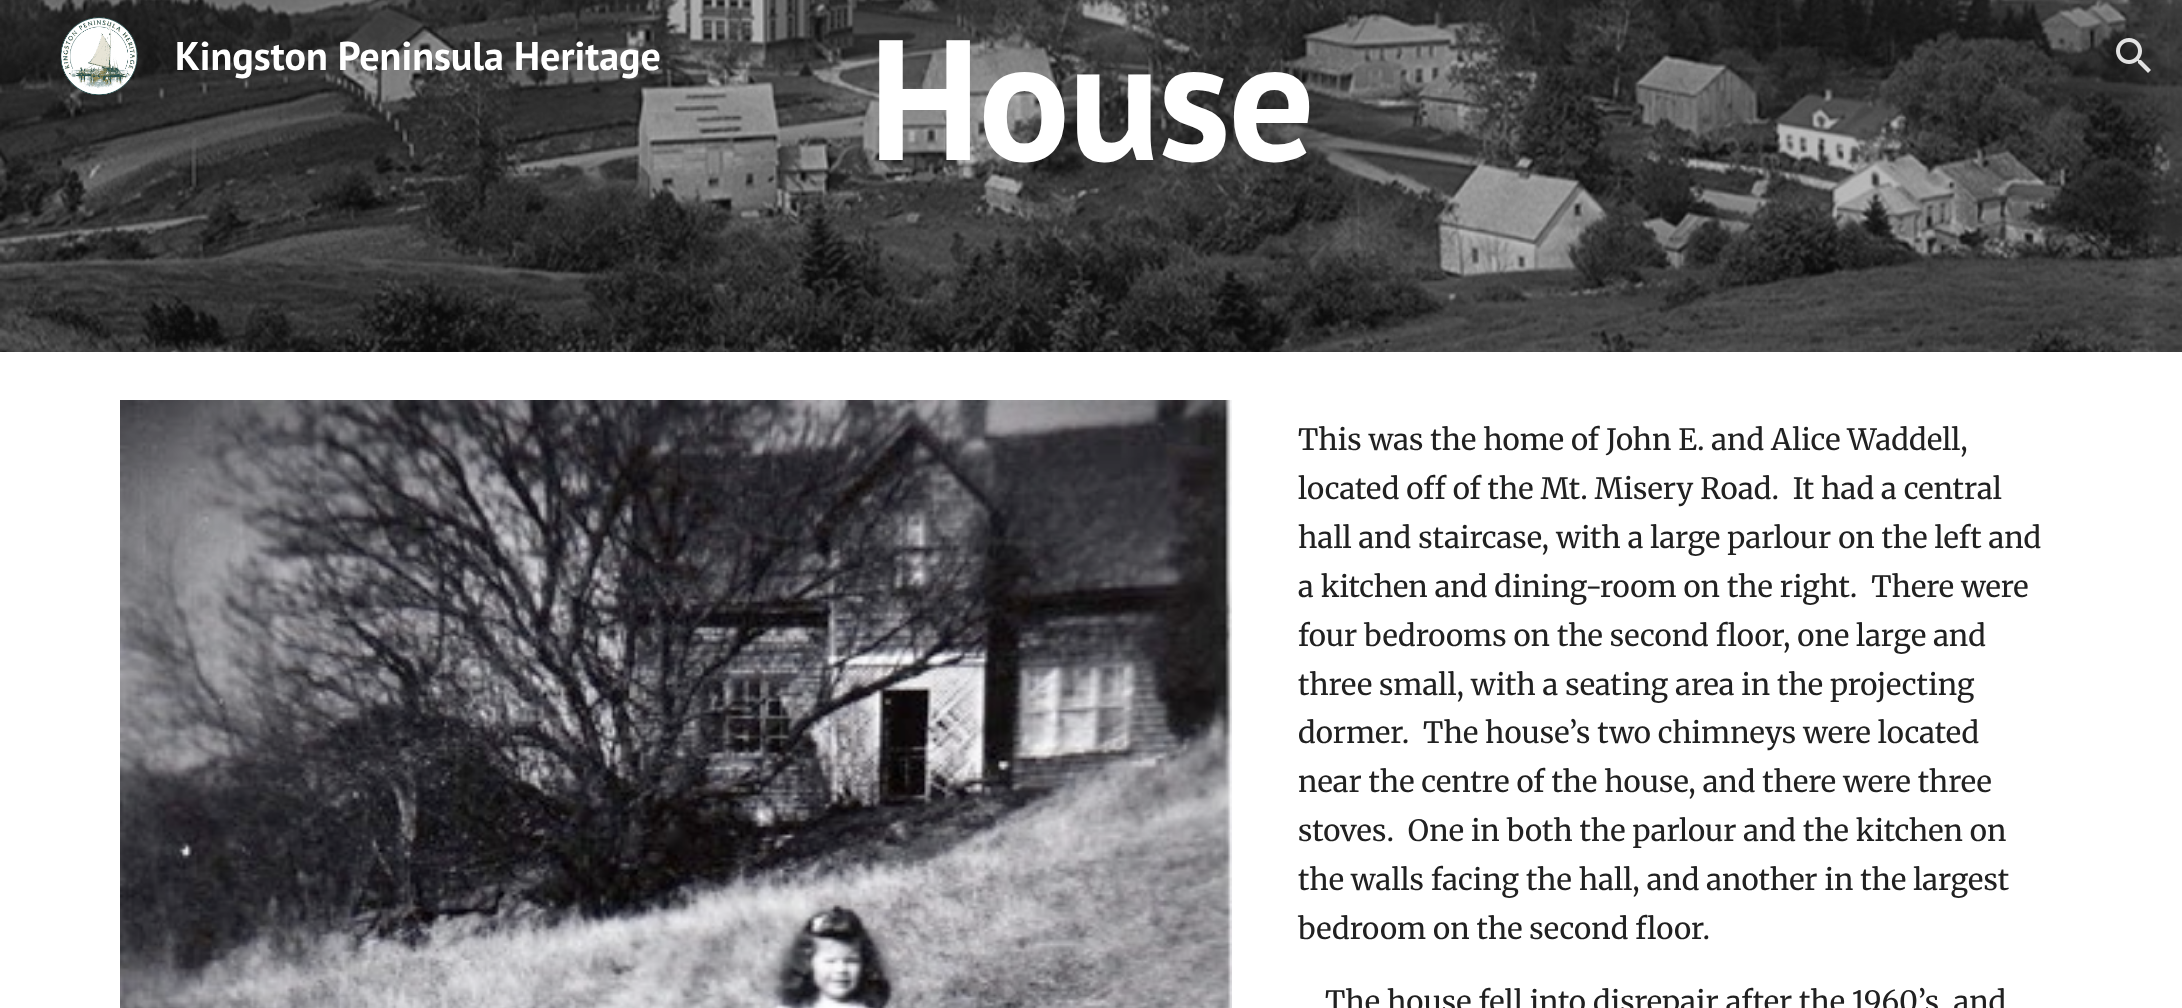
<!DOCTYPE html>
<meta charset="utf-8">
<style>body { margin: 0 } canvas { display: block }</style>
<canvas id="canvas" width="2182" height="1008"></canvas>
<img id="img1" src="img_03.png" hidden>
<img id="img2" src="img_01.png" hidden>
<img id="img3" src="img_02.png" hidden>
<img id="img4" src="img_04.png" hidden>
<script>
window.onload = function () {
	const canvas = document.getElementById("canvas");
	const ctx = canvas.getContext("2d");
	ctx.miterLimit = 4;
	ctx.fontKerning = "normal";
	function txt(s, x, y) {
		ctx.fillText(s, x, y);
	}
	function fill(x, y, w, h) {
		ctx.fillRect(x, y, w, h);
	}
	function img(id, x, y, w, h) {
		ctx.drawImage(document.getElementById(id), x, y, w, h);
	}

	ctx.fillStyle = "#FFFFFF";
	fill(0, 0, 2182, 1008);
	img("img1", 0, 0, 2182, 352);
	img("img2", 60, 17, 78, 78);
	img("img3", 2116, 38, 35, 35);
	img("img4", 120, 400, 1112, 608);
	ctx.font = "bold 40px PT Sans";
	txt("Kingston Peninsula Heritage", 175, 70);
	ctx.letterSpacing = "-2px";
	ctx.font = "bold 171px PT Sans";
	txt("House", 869, 160);
	ctx.letterSpacing = "0px";
	ctx.font = "29.3px Merriweather";
	ctx.fillStyle = "#212121";
	txt("This was the home of John E. and Alice Waddell,", 1298, 450);
	txt("located off of the Mt. Misery Road.  It had a central", 1298, 499);
	txt("hall and staircase, with a large parlour on the left and", 1298, 548);
	txt("a kitchen and dining-room on the right.  There were", 1298, 597);
	txt("four bedrooms on the second floor, one large and", 1298, 646);
	txt("three small, with a seating area in the projecting", 1298, 695);
	txt("dormer.  The house’s two chimneys were located", 1298, 743);
	txt("near the centre of the house, and there were three", 1298, 792);
	txt("stoves.  One in both the parlour and the kitchen on", 1298, 841);
	txt("the walls facing the hall, and another in the largest", 1298, 890);
	txt("bedroom on the second floor.", 1298, 939);
	txt("The house fell into disrepair after the 1960’s, and", 1325, 1012);
};
</script>
